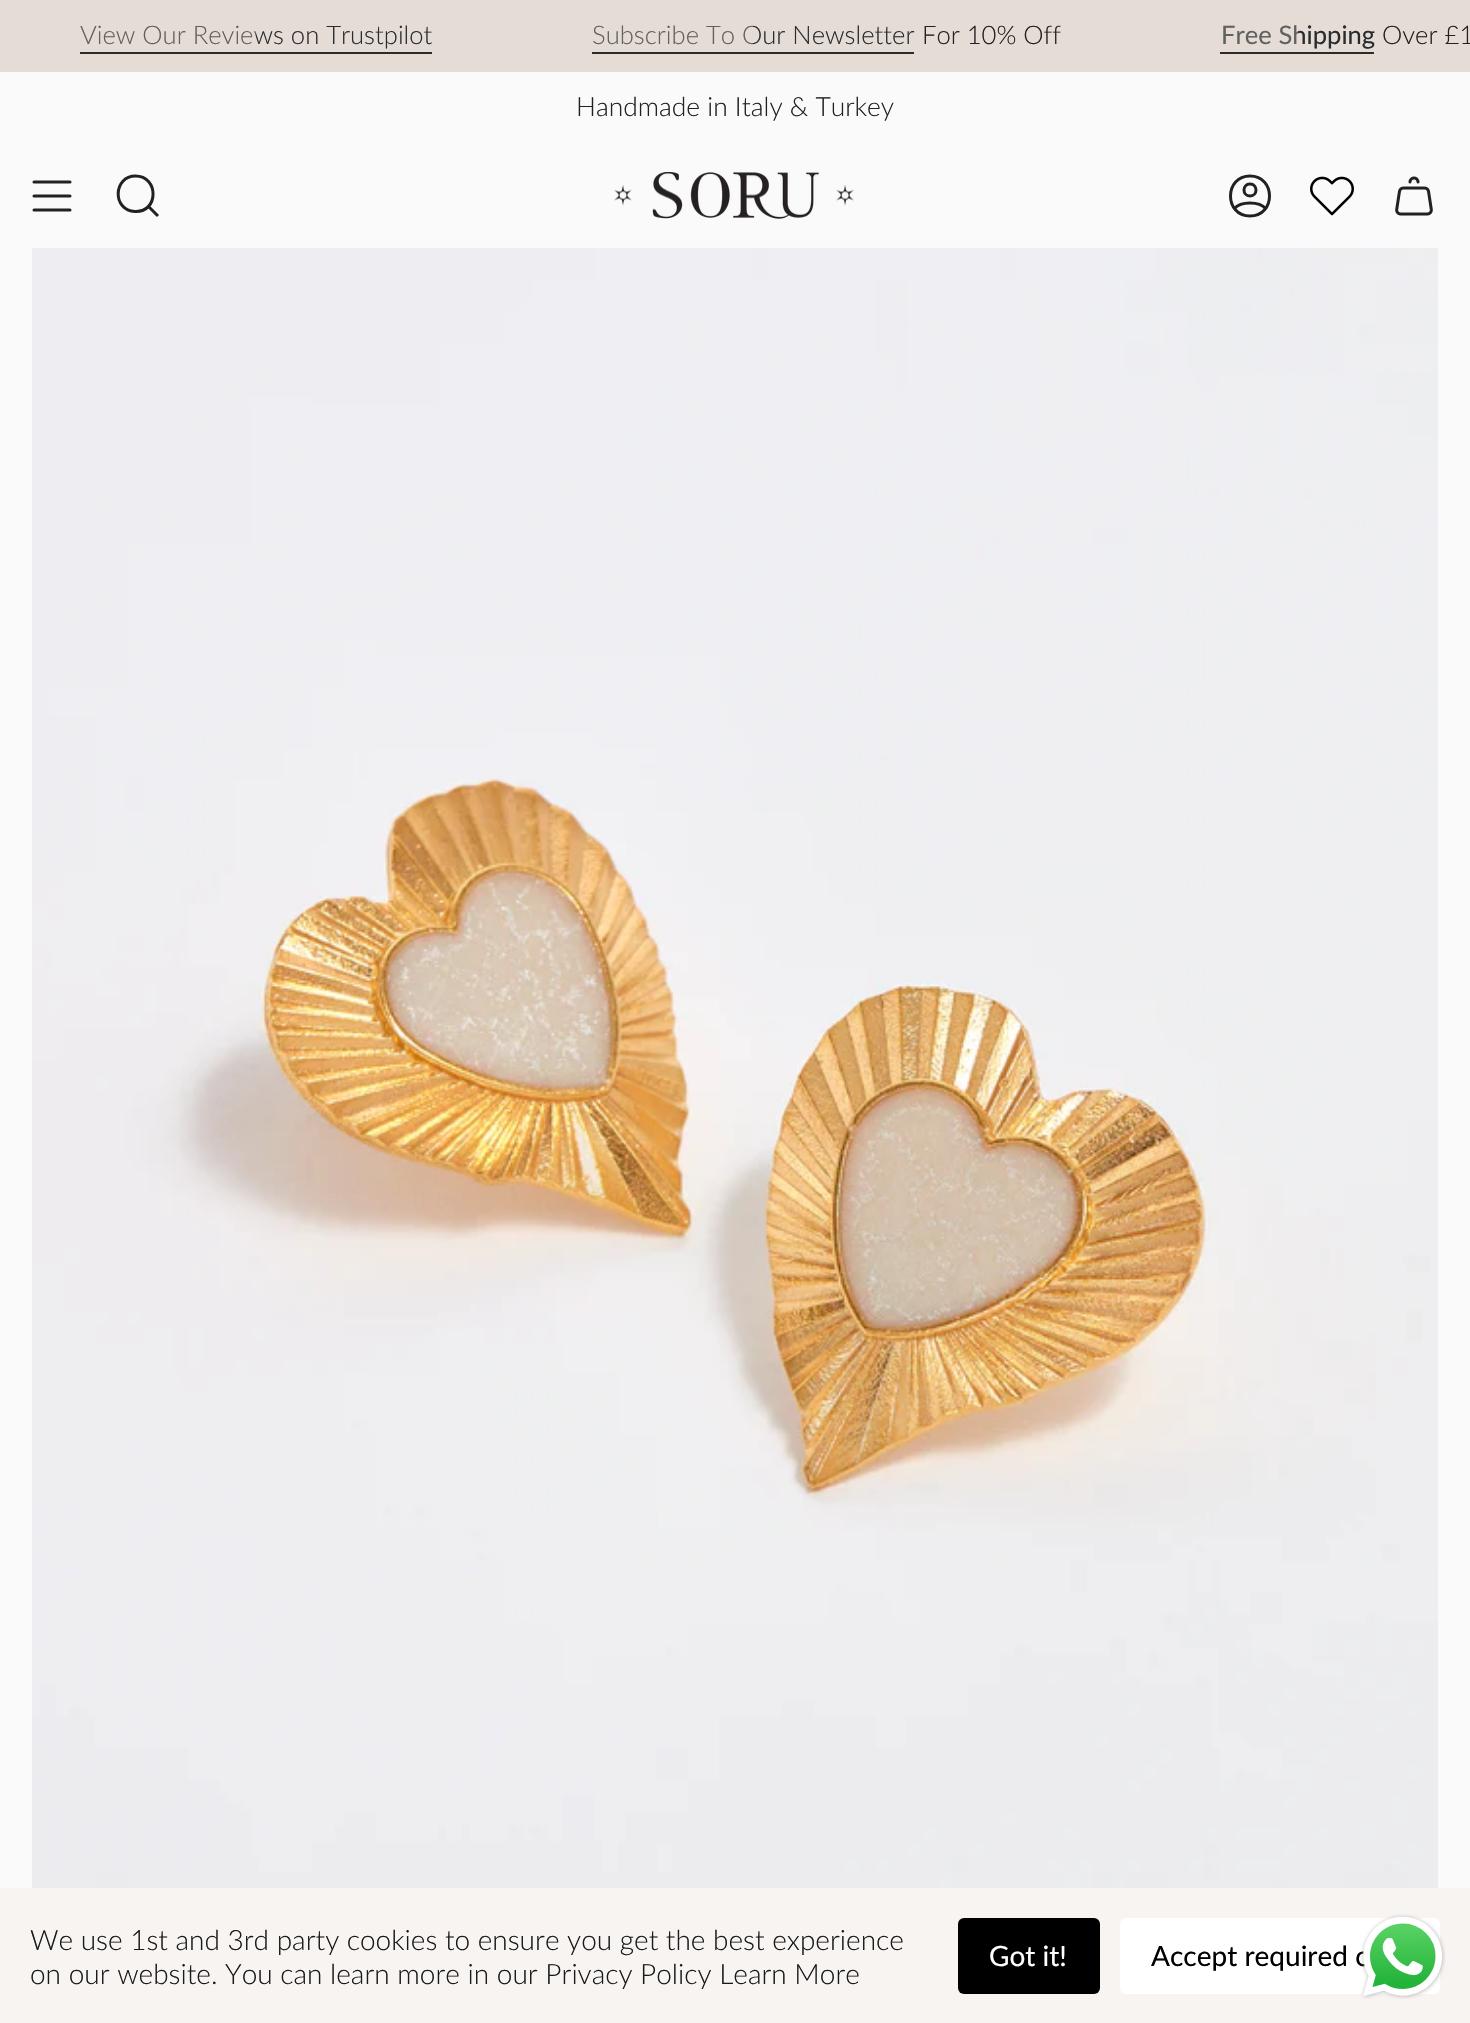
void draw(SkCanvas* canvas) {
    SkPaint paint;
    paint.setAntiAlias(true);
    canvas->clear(0xFFFAFAFA);
    paint.setColor(0xFFE6DCD6);
    canvas->drawRect(SkRect::MakeXYWH(0, 0, 1470, 72), paint);
    SkFont font1(fontMgr->matchFamilyStyle("Lato", SkFontStyle(300, SkFontStyle::kNormal_Width, SkFontStyle::kUpright_Slant)), 25.6f);
    font1.setSubpixel(true);
    {
        const SkColor colors[] = {0xFF616160, 0xFF616160, 0xFF282C2E, 0xFF282C2E};
        const float stops[] = {0, 0.5f, 0.5f, 1};
        const SkPoint ends[] = {{80, 36}, {432, 36}};
        paint.setShader(SkGradientShader::MakeLinear(ends, colors, stops, 4, SkTileMode::kClamp));
        paint.setAlpha(255);
    }
    canvas->drawString("View Our Reviews on Trustpilot", 80, 44, font1, paint);
    paint.setShader(nullptr);
    paint.setColor(0xFF282C2E);
    canvas->drawRect(SkRect::MakeXYWH(80, 52, 352, 2), paint);
    {
        const SkColor colors[] = {0xFF616160, 0xFF616160, 0xFF282C2E, 0xFF282C2E};
        const float stops[] = {0, 0.5f, 0.5f, 1};
        const SkPoint ends[] = {{592, 36}, {915, 36}};
        paint.setShader(SkGradientShader::MakeLinear(ends, colors, stops, 4, SkTileMode::kClamp));
        paint.setAlpha(255);
    }
    canvas->drawString("Subscribe To Our Newsletter", 592, 44, font1, paint);
    paint.setShader(nullptr);
    paint.setColor(0xFF282C2E);
    canvas->drawRect(SkRect::MakeXYWH(592, 52, 322, 2), paint);
    paint.setColor(0xFF212121);
    canvas->drawString("For 10% Off", 922, 44, font1, paint);
    SkFont font2(fontMgr->matchFamilyStyle("Lato", SkFontStyle::Normal()), 25.6f);
    font2.setSubpixel(true);
    {
        const SkColor colors[] = {0xFF616160, 0xFF616160, 0xFF282C2E, 0xFF282C2E};
        const float stops[] = {0, 0.5f, 0.5f, 1};
        const SkPoint ends[] = {{1221, 36}, {1375, 36}};
        paint.setShader(SkGradientShader::MakeLinear(ends, colors, stops, 4, SkTileMode::kClamp));
        paint.setAlpha(255);
    }
    canvas->drawString("Free Shipping", 1221, 44, font2, paint);
    paint.setShader(nullptr);
    paint.setColor(0xFF282C2E);
    canvas->drawRect(SkRect::MakeXYWH(1220, 52, 154, 2), paint);
    paint.setColor(0xFF212121);
    canvas->drawString("Over £1", 1382, 44, font1, paint);
    SkFont font3(fontMgr->matchFamilyStyle("Lato", SkFontStyle(300, SkFontStyle::kNormal_Width, SkFontStyle::kUpright_Slant)), 26.4f);
    font3.setSubpixel(true);
    canvas->drawString("Handmade in Italy & Turkey", 576, 116, font3, paint);
    paint.setStyle(SkPaint::kStroke_Style);
    paint.setStrokeWidth(3);
    paint.setStrokeCap(SkPaint::kRound_Cap);
    paint.setStrokeJoin(SkPaint::kRound_Join);
    canvas->drawPath(SkPathBuilder().moveTo(34, 182).lineTo(70, 182).moveTo(34, 196).lineTo(70, 196).moveTo(34, 210).lineTo(70, 210).detach(), paint);
    paint.setStrokeCap(SkPaint::kButt_Cap);
    paint.setStrokeJoin(SkPaint::kMiter_Join);
    canvas->drawPath(SkPathBuilder().moveTo(135.5f, 176).cubicTo(159, 176, 159, 212.5f, 135, 211.5f).cubicTo(112, 210.5f, 113, 176, 135.5f, 176).close().moveTo(148, 206).lineTo(158, 216).detach(), paint);
    canvas->drawImageRect(SkImages::DeferredFromEncodedData(SkData::MakeFromFileName("img1.png")), SkRect::MakeXYWH(614, 172, 240, 47), SkSamplingOptions());
    paint.setStrokeCap(SkPaint::kRound_Cap);
    paint.setStrokeJoin(SkPaint::kRound_Join);
    canvas->drawPath(SkPathBuilder().moveTo(1250, 176).cubicTo(1224, 176, 1224, 216, 1250, 216).cubicTo(1276, 216, 1276, 176, 1250, 176).close().moveTo(1234.5f, 208.5f).cubicTo(1240.5f, 201, 1259.5f, 201, 1265.5f, 208.5f).moveTo(1250, 196).cubicTo(1258, 196, 1258, 184, 1250, 184).cubicTo(1242, 184, 1242, 196, 1250, 196).close().detach(), paint);
    canvas->drawImageRect(SkImages::DeferredFromEncodedData(SkData::MakeFromFileName("img2.png")), SkRect::MakeXYWH(1310, 176, 44, 40), SkSamplingOptions());
    canvas->drawImageRect(SkImages::DeferredFromEncodedData(SkData::MakeFromFileName("img3.png")), SkRect::MakeXYWH(1395, 176, 38, 40), SkSamplingOptions());
    canvas->drawImageRect(SkImages::DeferredFromEncodedData(SkData::MakeFromFileName("img4.png")), SkRect::MakeXYWH(32, 248, 1406, 1640), SkSamplingOptions());
    paint.setStyle(SkPaint::kFill_Style);
    paint.setColor(0xFFF8F4F2);
    canvas->drawRect(SkRect::MakeXYWH(0, 1888, 1470, 135), paint);
    SkFont font4(fontMgr->matchFamilyStyle("Lato", SkFontStyle(300, SkFontStyle::kNormal_Width, SkFontStyle::kUpright_Slant)), 28);
    font4.setSubpixel(true);
    paint.setColor(0xFF1A1A1A);
    canvas->drawString("We use 1st and 3rd party cookies to ensure you get the best experience", 30, 1950, font4, paint);
    canvas->drawString("on our website. You can learn more in our Privacy Policy Learn More", 30, 1984, font4, paint);
    paint.setColor(0xFF000000);
    canvas->drawRoundRect(SkRect::MakeXYWH(958, 1918, 142, 76), 6, 6, paint);
    SkFont font5(fontMgr->matchFamilyStyle("Lato", SkFontStyle::Normal()), 28);
    font5.setSubpixel(true);
    paint.setColor(0xFFFFFFFF);
    canvas->drawString("Got it!", 989, 1966, font5, paint);
    canvas->drawRoundRect(SkRect::MakeXYWH(1120, 1918, 320, 76), 6, 6, paint);
    paint.setColor(0xFF000000);
    canvas->drawString("Accept required o", 1151, 1966, font5, paint);
    canvas->drawImageRect(SkImages::DeferredFromEncodedData(SkData::MakeFromFileName("img5.png")), SkRect::MakeXYWH(1360, 1914, 86, 85), SkSamplingOptions());
}
